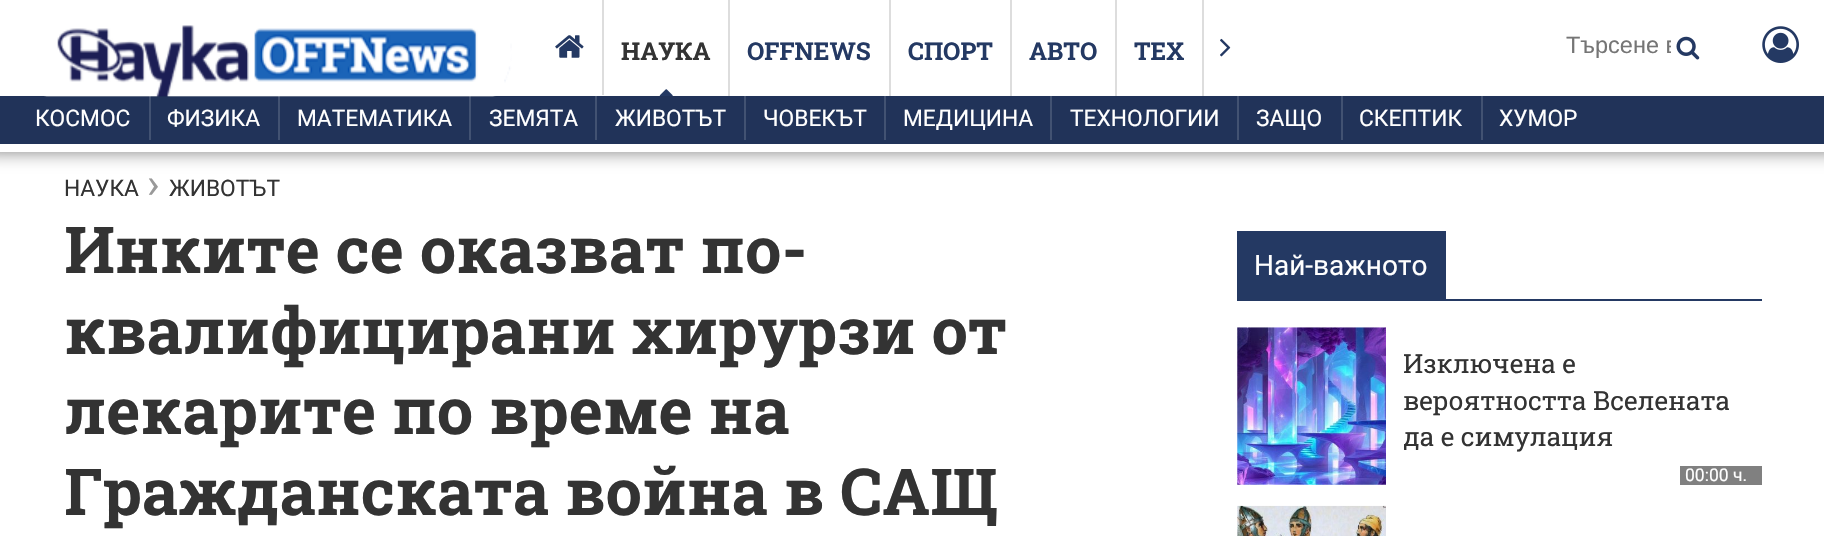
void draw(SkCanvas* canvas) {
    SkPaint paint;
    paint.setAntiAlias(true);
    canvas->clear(0xFFFFFFFF);
    paint.setColor(0x80000000);
    paint.setMaskFilter(SkMaskFilter::MakeBlur(kNormal_SkBlurStyle, 9));
    canvas->drawRect(SkRect::MakeXYWH(-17, 117, 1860, 35), paint);
    paint.setMaskFilter(nullptr);
    paint.setColor(0xFF243963);
    canvas->drawRect(SkRect::MakeXYWH(0, 96, 1824, 48), paint);
    canvas->drawImageRect(SkImages::DeferredFromEncodedData(SkData::MakeFromFileName("img1.png")), SkRect::MakeXYWH(44, 25, 468, 72), SkSamplingOptions());
    paint.setColor(0xFFDDDDDD);
    canvas->drawRect(SkRect::MakeXYWH(602, 0, 2, 95), paint);
    canvas->drawImageRect(SkImages::DeferredFromEncodedData(SkData::MakeFromFileName("img2.png")), SkRect::MakeXYWH(555, 35, 29, 23), SkSamplingOptions());
    canvas->drawRect(SkRect::MakeXYWH(728, 0, 2, 96), paint);
    SkFont font1(fontMgr->matchFamilyStyle("Roboto Slab", SkFontStyle::Bold()), 24.5f);
    font1.setSubpixel(true);
    paint.setColor(0xFF333333);
    canvas->drawString("НАУКА", 621, 60, font1, paint);
    canvas->drawImageRect(SkImages::DeferredFromEncodedData(SkData::MakeFromFileName("img3.png")), SkRect::MakeXYWH(659, 89, 14, 7), SkSamplingOptions());
    paint.setColor(0xFFDDDDDD);
    canvas->drawRect(SkRect::MakeXYWH(889, 0, 2, 96), paint);
    paint.setColor(0xFF243963);
    canvas->drawString("OFFNEWS", 747, 60, font1, paint);
    paint.setColor(0xFFDDDDDD);
    canvas->drawRect(SkRect::MakeXYWH(1010, 0, 2, 96), paint);
    paint.setColor(0xFF243963);
    canvas->drawString("СПОРТ", 908, 60, font1, paint);
    paint.setColor(0xFFDDDDDD);
    canvas->drawRect(SkRect::MakeXYWH(1115, 0, 2, 96), paint);
    paint.setColor(0xFF243963);
    canvas->drawString("АВТО", 1029, 60, font1, paint);
    paint.setColor(0xFFDDDDDD);
    canvas->drawRect(SkRect::MakeXYWH(1202, 0, 2, 96), paint);
    paint.setColor(0xFF243963);
    canvas->drawString("ТЕХ", 1134, 60, font1, paint);
    canvas->drawImageRect(SkImages::DeferredFromEncodedData(SkData::MakeFromFileName("img4.png")), SkRect::MakeXYWH(1220, 38, 11, 19), SkSamplingOptions());
    canvas->save();
    canvas->clipRect(SkRect::MakeXYWH(1566, 33, 105, 27));
    SkFont font2(fontMgr->matchFamilyStyle("Liberation Sans", SkFontStyle::Normal()), 23.5f);
    font2.setSubpixel(true);
    paint.setColor(0xFF757575);
    canvas->drawString("Търсене в", 1566, 53, font2, paint);
    canvas->restore();
    canvas->drawImageRect(SkImages::DeferredFromEncodedData(SkData::MakeFromFileName("img5.png")), SkRect::MakeXYWH(1676, 36, 24, 24), SkSamplingOptions());
    canvas->drawImageRect(SkImages::DeferredFromEncodedData(SkData::MakeFromFileName("img6.png")), SkRect::MakeXYWH(1762, 26, 37, 37), SkSamplingOptions());
    paint.setColor(0xFFFFFFFF);
    canvas->drawRect(SkRect::MakeXYWH(0, 144, 1824, 8), paint);
    paint.setColor(0x1A000000);
    canvas->drawRect(SkRect::MakeXYWH(0, 96, 1824, 48), paint);
    paint.setColor(0x26FFFFFF);
    canvas->drawRect(SkRect::MakeXYWH(149, 96, 2, 44), paint);
    SkFont font3(fontMgr->matchFamilyStyle("Roboto", SkFontStyle::Normal()), 22.75f);
    font3.setSubpixel(true);
    paint.setColor(0xFFFFFFFF);
    canvas->drawString("КОСМОС", 35, 126, font3, paint);
    paint.setColor(0x26FFFFFF);
    canvas->drawRect(SkRect::MakeXYWH(278, 96, 2, 44), paint);
    paint.setColor(0xFFFFFFFF);
    canvas->drawString("ФИЗИКА", 167, 126, font3, paint);
    paint.setColor(0x26FFFFFF);
    canvas->drawRect(SkRect::MakeXYWH(469, 96, 2, 44), paint);
    paint.setColor(0xFFFFFFFF);
    canvas->drawString("МАТЕМАТИКА", 297, 126, font3, paint);
    paint.setColor(0xFF425272);
    canvas->drawRect(SkRect::MakeXYWH(595, 96, 2, 44), paint);
    paint.setColor(0xFFFFFFFF);
    canvas->drawString("ЗЕМЯТА", 489, 126, font3, paint);
    paint.setColor(0xFF425272);
    canvas->drawRect(SkRect::MakeXYWH(744, 96, 2, 44), paint);
    paint.setColor(0xFFFFFFFF);
    canvas->drawString("ЖИВОТЪТ", 615, 126, font3, paint);
    paint.setColor(0xFF425272);
    canvas->drawRect(SkRect::MakeXYWH(884, 96, 2, 44), paint);
    paint.setColor(0xFFFFFFFF);
    canvas->drawString("ЧОВЕКЪТ", 763, 126, font3, paint);
    paint.setColor(0xFF425272);
    canvas->drawRect(SkRect::MakeXYWH(1050, 96, 2, 44), paint);
    paint.setColor(0xFFFFFFFF);
    canvas->drawString("МЕДИЦИНА", 903, 126, font3, paint);
    paint.setColor(0xFF425272);
    canvas->drawRect(SkRect::MakeXYWH(1237, 96, 2, 44), paint);
    paint.setColor(0xFFFFFFFF);
    canvas->drawString("ТЕХНОЛОГИИ", 1070, 126, font3, paint);
    paint.setColor(0xFF425272);
    canvas->drawRect(SkRect::MakeXYWH(1341, 96, 2, 44), paint);
    paint.setColor(0xFFFFFFFF);
    canvas->drawString("ЗАЩО", 1256, 126, font3, paint);
    paint.setColor(0xFF425272);
    canvas->drawRect(SkRect::MakeXYWH(1481, 96, 2, 44), paint);
    paint.setColor(0xFFFFFFFF);
    canvas->drawString("СКЕПТИК", 1359, 126, font3, paint);
    canvas->drawString("ХУМОР", 1499, 126, font3, paint);
    paint.setColor(0xFF333333);
    canvas->drawString("НАУКА", 64, 196, font3, paint);
    SkFont font4(fontMgr->matchFamilyStyle("Roboto", SkFontStyle::Normal()), 42);
    font4.setSubpixel(true);
    paint.setColor(0xFF999999);
    canvas->drawString("›", 147, 198, font4, paint);
    paint.setColor(0xFF333333);
    canvas->drawString("ЖИВОТЪТ", 169, 196, font3, paint);
    SkFont font5(fontMgr->matchFamilyStyle("Roboto Slab", SkFontStyle::Bold()), 64.75f);
    font5.setSubpixel(true);
    canvas->drawString("Инките се оказват по-", 64, 273, font5, paint);
    canvas->drawString("квалифицирани хирурзи от", 64, 354, font5, paint);
    canvas->drawString("лекарите по време на", 64, 434, font5, paint);
    canvas->drawString("Гражданската война в САЩ", 64, 515, font5, paint);
    paint.setColor(0xFF243963);
    canvas->drawRect(SkRect::MakeXYWH(1237, 299, 525, 2), paint);
    canvas->drawRect(SkRect::MakeXYWH(1237, 231, 209, 68), paint);
    SkFont font6(fontMgr->matchFamilyStyle("Roboto", SkFontStyle::Normal()), 28);
    font6.setSubpixel(true);
    paint.setColor(0xFFFFFFFF);
    canvas->drawString("Най-важното", 1254, 275, font6, paint);
    canvas->drawImageRect(SkImages::DeferredFromEncodedData(SkData::MakeFromFileName("img7.png")), SkRect::MakeXYWH(1237, 327, 149, 158), SkSamplingOptions());
    canvas->save();
    canvas->clipRect(SkRect::MakeXYWH(1404, 345, 341, 112));
    SkFont font7(fontMgr->matchFamilyStyle("Roboto Slab", SkFontStyle::Normal()), 26.25f);
    font7.setSubpixel(true);
    paint.setColor(0xFF333333);
    canvas->drawString("Изключена е", 1403, 373, font7, paint);
    canvas->drawString("вероятността Вселената", 1403, 410, font7, paint);
    canvas->drawString("да е симулация", 1403, 446, font7, paint);
    canvas->restore();
    paint.setColor(0xFF808080);
    canvas->drawRect(SkRect::MakeXYWH(1680, 466, 82, 19), paint);
    SkFont font8(fontMgr->matchFamilyStyle("Roboto", SkFontStyle::Normal()), 17.5f);
    font8.setSubpixel(true);
    paint.setColor(0xFFFFFFFF);
    canvas->drawString("00:00 ч.", 1685, 481, font8, paint);
    canvas->drawImageRect(SkImages::DeferredFromEncodedData(SkData::MakeFromFileName("img8.png")), SkRect::MakeXYWH(1237, 505, 149, 31), SkSamplingOptions());
}
